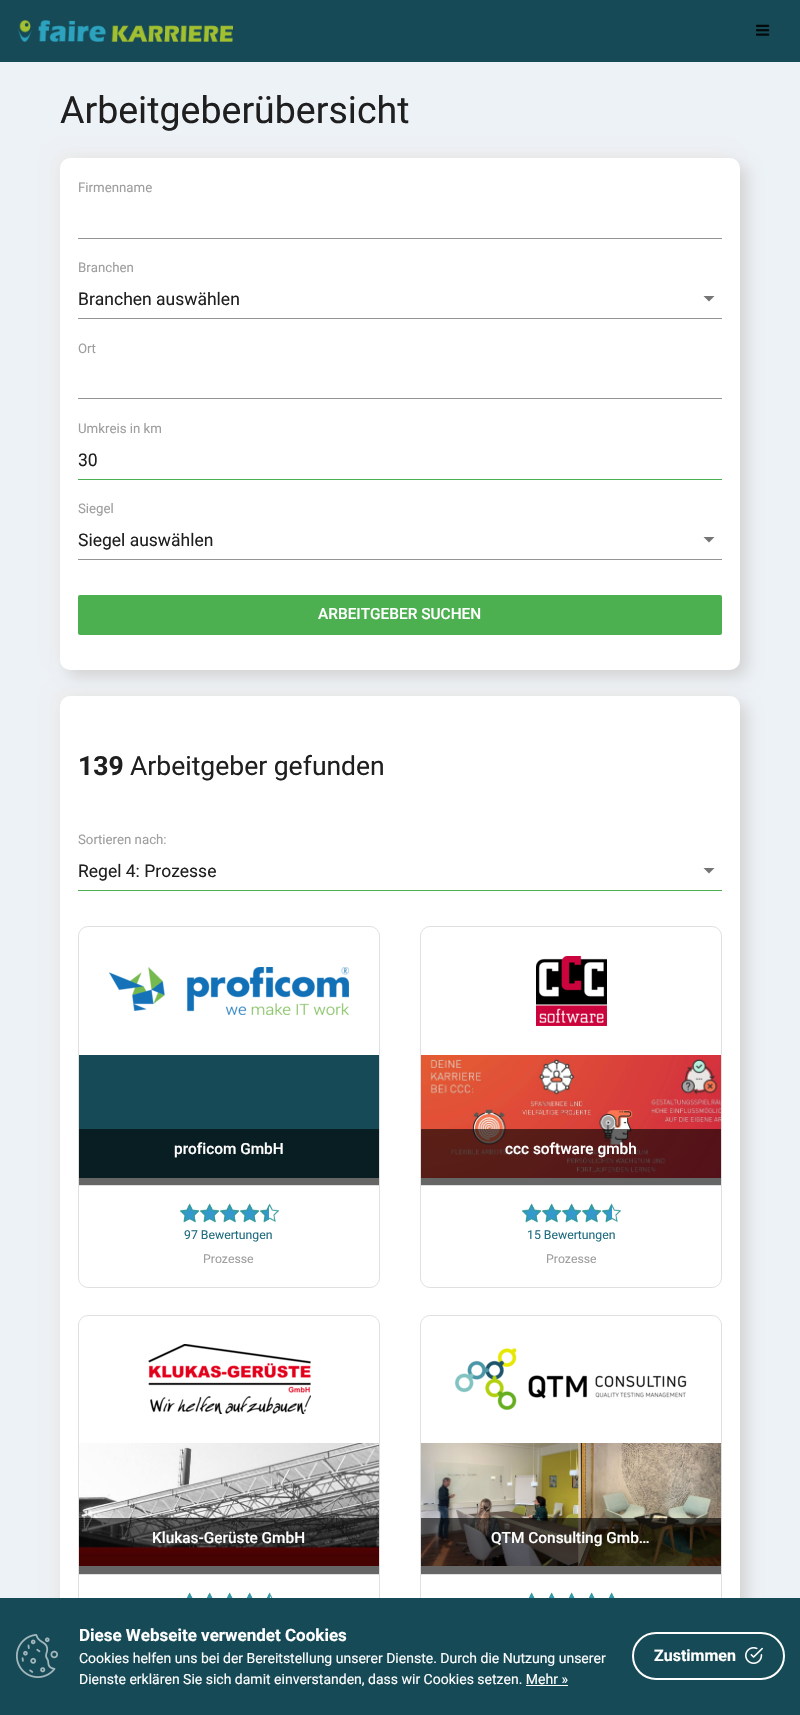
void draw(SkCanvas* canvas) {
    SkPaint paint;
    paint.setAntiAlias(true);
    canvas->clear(0xFFEDF2F7);
    paint.setColor(0xFF164A57);
    canvas->drawRect(SkRect::MakeXYWH(0, 0, 800, 62), paint);
    canvas->drawImageRect(SkImages::DeferredFromEncodedData(SkData::MakeFromFileName("img1.png")), SkRect::MakeXYWH(18, 20, 215, 22), SkSamplingOptions());
    canvas->drawImageRect(SkImages::DeferredFromEncodedData(SkData::MakeFromFileName("img2.png")), SkRect::MakeXYWH(756, 24, 14, 12), SkSamplingOptions());
    SkFont font1(fontMgr->matchFamilyStyle("Roboto", SkFontStyle::Normal()), 37.5f);
    font1.setSubpixel(true);
    paint.setColor(0xFF1F1F20);
    canvas->drawString("Arbeitgeberübersicht", 60, 123, font1, paint);
    paint.setColor(0xFFEDEDED);
    paint.setMaskFilter(SkMaskFilter::MakeBlur(kNormal_SkBlurStyle, 7.5f));
    canvas->drawRoundRect(SkRect::MakeXYWH(53, 151, 680, 512), 10, 10, paint);
    paint.setMaskFilter(nullptr);
    paint.setColor(0xFFD3D3D3);
    paint.setMaskFilter(SkMaskFilter::MakeBlur(kNormal_SkBlurStyle, 7.5f));
    canvas->drawRoundRect(SkRect::MakeXYWH(67, 165, 680, 512), 10, 10, paint);
    paint.setMaskFilter(nullptr);
    paint.setColor(0xFFFFFFFF);
    canvas->drawRoundRect(SkRect::MakeXYWH(60, 158, 680, 512), 10, 10, paint);
    SkFont font2(fontMgr->matchFamilyStyle("Roboto", SkFontStyle::Normal()), 13.25f);
    font2.setSubpixel(true);
    paint.setColor(0xFF9E9E9E);
    canvas->drawString("Firmenname", 78, 192, font2, paint);
    paint.setColor(0xFF949494);
    canvas->drawRect(SkRect::MakeXYWH(78, 238, 644, 1), paint);
    paint.setColor(0xFF9E9E9E);
    canvas->drawString("Branchen", 78, 272, font2, paint);
    paint.setColor(0xFF757575);
    canvas->drawPath(SkPathBuilder().moveTo(703.5f, 296).lineTo(709, 301.5f).lineTo(714.5f, 296).close().detach(), paint);
    paint.setColor(0xFF949494);
    canvas->drawRect(SkRect::MakeXYWH(78, 318, 644, 1), paint);
    SkFont font3(fontMgr->matchFamilyStyle("Roboto", SkFontStyle::Normal()), 17.5f);
    font3.setSubpixel(true);
    paint.setColor(0xFF1F1F20);
    canvas->drawString("Branchen auswählen", 78, 305, font3, paint);
    paint.setColor(0xFF9E9E9E);
    canvas->drawString("Ort", 78, 353, font2, paint);
    paint.setColor(0xFF949494);
    canvas->drawRect(SkRect::MakeXYWH(78, 398, 644, 1), paint);
    paint.setColor(0xFF9E9E9E);
    canvas->drawString("Umkreis in km", 78, 433, font2, paint);
    paint.setColor(0xFF4CAF50);
    canvas->drawRect(SkRect::MakeXYWH(78, 479, 644, 1), paint);
    paint.setColor(0xFF1F1F20);
    canvas->drawString("30", 78, 466, font3, paint);
    paint.setColor(0xFF9E9E9E);
    canvas->drawString("Siegel", 78, 513, font2, paint);
    paint.setColor(0xFF757575);
    canvas->drawPath(SkPathBuilder().moveTo(703.5f, 537).lineTo(709, 542.5f).lineTo(714.5f, 537).close().detach(), paint);
    paint.setColor(0xFF949494);
    canvas->drawRect(SkRect::MakeXYWH(78, 559, 644, 1), paint);
    paint.setColor(0xFF1F1F20);
    canvas->drawString("Siegel auswählen", 78, 546, font3, paint);
    paint.setColor(0xFF4CAF50);
    canvas->drawRoundRect(SkRect::MakeXYWH(78, 595, 644, 40), 2, 2, paint);
    SkFont font4(fontMgr->matchFamilyStyle("Roboto", SkFontStyle(500, SkFontStyle::kNormal_Width, SkFontStyle::kUpright_Slant)), 15.4f);
    font4.setSubpixel(true);
    paint.setColor(0xFFFFFFFF);
    canvas->drawString("ARBEITGEBER SUCHEN", 318, 619, font4, paint);
    paint.setColor(0xFFEDEDED);
    paint.setMaskFilter(SkMaskFilter::MakeBlur(kNormal_SkBlurStyle, 7.5f));
    canvas->drawRoundRect(SkRect::MakeXYWH(53, 689, 680, 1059), 10, 10, paint);
    paint.setMaskFilter(nullptr);
    paint.setColor(0xFFD3D3D3);
    paint.setMaskFilter(SkMaskFilter::MakeBlur(kNormal_SkBlurStyle, 7.5f));
    canvas->drawRoundRect(SkRect::MakeXYWH(67, 703, 680, 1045), 10, 10, paint);
    paint.setMaskFilter(nullptr);
    paint.setColor(0xFFFFFFFF);
    canvas->drawRoundRect(SkRect::MakeXYWH(60, 696, 680, 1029), 10, 10, paint);
    paint.setColor(0xFF666666);
    canvas->drawRect(SkRect::MakeXYWH(79, 1178, 300, 7), paint);
    SkFont font5(fontMgr->matchFamilyStyle("Roboto", SkFontStyle::Bold()), 26.5f);
    font5.setSubpixel(true);
    paint.setColor(0xFF1F1F20);
    canvas->drawString("139", 78, 775, font5, paint);
    SkFont font6(fontMgr->matchFamilyStyle("Roboto", SkFontStyle::Normal()), 26.5f);
    font6.setSubpixel(true);
    canvas->drawString("Arbeitgeber gefunden", 130, 775, font6, paint);
    paint.setColor(0xFF9E9E9E);
    canvas->drawString("Sortieren nach:", 78, 844, font2, paint);
    paint.setColor(0xFF757575);
    canvas->drawPath(SkPathBuilder().moveTo(703.5f, 868).lineTo(709, 873.5f).lineTo(714.5f, 868).close().detach(), paint);
    paint.setColor(0xFF4CAF50);
    canvas->drawRect(SkRect::MakeXYWH(78, 890, 644, 1), paint);
    paint.setColor(0xFF1F1F20);
    canvas->drawString("Regel 4: Prozesse", 78, 877, font3, paint);
    paint.setStyle(SkPaint::kStroke_Style);
    paint.setStrokeWidth(1);
    paint.setColor(0xFFE0E0E0);
    canvas->drawRoundRect(SkRect::MakeXYWH(78.5f, 926.5f, 301, 361), 9.5f, 9.5f, paint);
    canvas->drawImageRect(SkImages::DeferredFromEncodedData(SkData::MakeFromFileName("img3.png")), SkRect::MakeXYWH(109, 967, 240, 48), SkSamplingOptions());
    paint.setStyle(SkPaint::kFill_Style);
    paint.setColor(0xFF164A57);
    canvas->drawRect(SkRect::MakeXYWH(79, 1055, 300, 74), paint);
    paint.setColor(0xFF091E23);
    canvas->drawRect(SkRect::MakeXYWH(79, 1129, 300, 49), paint);
    paint.setColor(0xFFFFFFFF);
    canvas->drawString("proficom GmbH", 174, 1154, font4, paint);
    paint.setColor(0xFFE0E0E0);
    canvas->drawRect(SkRect::MakeXYWH(79, 1185, 300, 1), paint);
    canvas->drawImageRect(SkImages::DeferredFromEncodedData(SkData::MakeFromFileName("img4.png")), SkRect::MakeXYWH(179, 1203, 100, 20), SkSamplingOptions());
    canvas->drawImageRect(SkImages::DeferredFromEncodedData(SkData::MakeFromFileName("img5.png")), SkRect::MakeXYWH(179, 1203, 90, 20), SkSamplingOptions());
    SkFont font7(fontMgr->matchFamilyStyle("Roboto", SkFontStyle::Normal()), 12.25f);
    font7.setSubpixel(true);
    paint.setColor(0xFF206C80);
    canvas->drawString("97 Bewertungen", 184, 1239, font7, paint);
    paint.setColor(0xFF9E9E9E);
    canvas->drawString("Prozesse", 203, 1263, font7, paint);
    paint.setStyle(SkPaint::kStroke_Style);
    paint.setColor(0xFFE0E0E0);
    canvas->drawRoundRect(SkRect::MakeXYWH(420.5f, 926.5f, 301, 361), 9.5f, 9.5f, paint);
    canvas->drawImageRect(SkImages::DeferredFromEncodedData(SkData::MakeFromFileName("img6.png")), SkRect::MakeXYWH(536, 956, 71, 70), SkSamplingOptions());
    canvas->drawImageRect(SkImages::DeferredFromEncodedData(SkData::MakeFromFileName("img7.png")), SkRect::MakeXYWH(421, 1055, 300, 123), SkSamplingOptions());
    paint.setStyle(SkPaint::kFill_Style);
    paint.setColor(0x99000000);
    canvas->drawRect(SkRect::MakeXYWH(421, 1129, 300, 56), paint);
    paint.setColor(0xFFFFFFFF);
    canvas->drawString("ccc software gmbh", 505, 1154, font4, paint);
    paint.setColor(0xFFE0E0E0);
    canvas->drawRect(SkRect::MakeXYWH(421, 1185, 300, 1), paint);
    canvas->drawImageRect(SkImages::DeferredFromEncodedData(SkData::MakeFromFileName("img4.png")), SkRect::MakeXYWH(521, 1203, 100, 20), SkSamplingOptions());
    canvas->drawImageRect(SkImages::DeferredFromEncodedData(SkData::MakeFromFileName("img8.png")), SkRect::MakeXYWH(521, 1203, 91, 20), SkSamplingOptions());
    paint.setColor(0xFF206C80);
    canvas->drawString("15 Bewertungen", 527, 1239, font7, paint);
    paint.setColor(0xFF9E9E9E);
    canvas->drawString("Prozesse", 546, 1263, font7, paint);
    paint.setStyle(SkPaint::kStroke_Style);
    paint.setColor(0xFFE0E0E0);
    canvas->drawRoundRect(SkRect::MakeXYWH(78.5f, 1315.5f, 301, 361), 9.5f, 9.5f, paint);
    canvas->drawImageRect(SkImages::DeferredFromEncodedData(SkData::MakeFromFileName("img9.png")), SkRect::MakeXYWH(148, 1344, 163, 70), SkSamplingOptions());
    canvas->drawImageRect(SkImages::DeferredFromEncodedData(SkData::MakeFromFileName("img10.png")), SkRect::MakeXYWH(79, 1443, 300, 123), SkSamplingOptions());
    paint.setStyle(SkPaint::kFill_Style);
    paint.setColor(0x99000000);
    canvas->drawRect(SkRect::MakeXYWH(79, 1518, 300, 56), paint);
    paint.setColor(0xFFFFFFFF);
    canvas->drawString("Klukas-Gerüste GmbH", 152, 1543, font4, paint);
    paint.setColor(0xFFE0E0E0);
    canvas->drawRect(SkRect::MakeXYWH(79, 1574, 300, 1), paint);
    canvas->drawImageRect(SkImages::DeferredFromEncodedData(SkData::MakeFromFileName("img11.png")), SkRect::MakeXYWH(187, 1592, 86, 6), SkSamplingOptions());
    canvas->drawImageRect(SkImages::DeferredFromEncodedData(SkData::MakeFromFileName("img12.png")), SkRect::MakeXYWH(187, 1592, 83, 6), SkSamplingOptions());
    paint.setStyle(SkPaint::kStroke_Style);
    canvas->drawRoundRect(SkRect::MakeXYWH(420.5f, 1315.5f, 301, 361), 9.5f, 9.5f, paint);
    canvas->drawImageRect(SkImages::DeferredFromEncodedData(SkData::MakeFromFileName("img13.png")), SkRect::MakeXYWH(454, 1348, 233, 63), SkSamplingOptions());
    canvas->drawImageRect(SkImages::DeferredFromEncodedData(SkData::MakeFromFileName("img14.png")), SkRect::MakeXYWH(421, 1443, 300, 123), SkSamplingOptions());
    paint.setStyle(SkPaint::kFill_Style);
    paint.setColor(0x99000000);
    canvas->drawRect(SkRect::MakeXYWH(421, 1518, 300, 56), paint);
    paint.setColor(0xFFFFFFFF);
    canvas->drawString("QTM Consulting Gmb…", 491, 1543, font4, paint);
    paint.setColor(0xFFE0E0E0);
    canvas->drawRect(SkRect::MakeXYWH(421, 1574, 300, 1), paint);
    canvas->drawImageRect(SkImages::DeferredFromEncodedData(SkData::MakeFromFileName("img11.png")), SkRect::MakeXYWH(529, 1592, 86, 6), SkSamplingOptions());
    canvas->drawImageRect(SkImages::DeferredFromEncodedData(SkData::MakeFromFileName("img15.png")), SkRect::MakeXYWH(529, 1592, 86, 6), SkSamplingOptions());
    paint.setColor(0xFF164A57);
    canvas->drawRect(SkRect::MakeXYWH(0, 1598, 800, 117), paint);
    canvas->drawImageRect(SkImages::DeferredFromEncodedData(SkData::MakeFromFileName("img16.png")), SkRect::MakeXYWH(16, 1634, 42, 44), SkSamplingOptions());
    SkFont font8(fontMgr->matchFamilyStyle("Roboto", SkFontStyle::Bold()), 17);
    font8.setSubpixel(true);
    paint.setColor(0xFFFFFFFF);
    canvas->drawString("Diese Webseite verwendet Cookies", 79, 1641, font8, paint);
    SkFont font9(fontMgr->matchFamilyStyle("Roboto", SkFontStyle::Normal()), 14);
    font9.setSubpixel(true);
    canvas->drawString("Cookies helfen uns bei der Bereitstellung unserer Dienste. Durch die Nutzung unserer", 79, 1663, font9, paint);
    canvas->drawString("Dienste erklären Sie sich damit einverstanden, dass wir Cookies setzen. Mehr »", 79, 1684, font9, paint);
    canvas->drawRect(SkRect::MakeXYWH(526, 1685, 42, 1), paint);
    paint.setStyle(SkPaint::kStroke_Style);
    paint.setStrokeWidth(2);
    canvas->drawRoundRect(SkRect::MakeXYWH(633, 1633, 151, 46), 23, 23, paint);
    SkFont font10(fontMgr->matchFamilyStyle("Roboto", SkFontStyle::Bold()), 16);
    font10.setSubpixel(true);
    paint.setStyle(SkPaint::kFill_Style);
    canvas->drawString("Zustimmen", 654, 1661, font10, paint);
    canvas->drawImageRect(SkImages::DeferredFromEncodedData(SkData::MakeFromFileName("img17.png")), SkRect::MakeXYWH(745, 1647, 18, 17), SkSamplingOptions());
}
